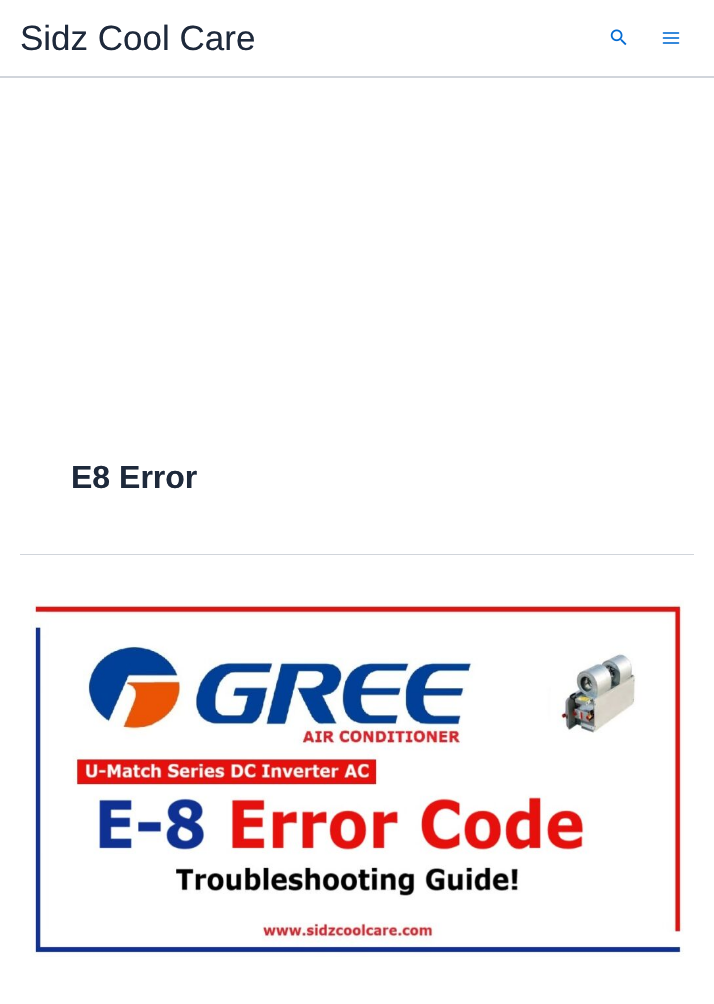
void draw(SkCanvas* canvas) {
    SkPaint paint;
    paint.setAntiAlias(true);
    canvas->clear(0xFFFFFFFF);
    paint.setColor(0xFFD1D5DB);
    canvas->drawRect(SkRect::MakeXYWH(0, 76, 714, 2), paint);
    SkFont font1(fontMgr->matchFamilyStyle("Liberation Sans", SkFontStyle::Normal()), 35);
    font1.setSubpixel(true);
    paint.setColor(0xFF1E293B);
    canvas->drawString("Sidz Cool Care", 20, 50, font1, paint);
    canvas->drawImageRect(SkImages::DeferredFromEncodedData(SkData::MakeFromFileName("img1.png")), SkRect::MakeXYWH(610, 29, 17, 17), SkSamplingOptions());
    canvas->drawImageRect(SkImages::DeferredFromEncodedData(SkData::MakeFromFileName("img2.png")), SkRect::MakeXYWH(662, 32, 18, 12), SkSamplingOptions());
    paint.setColor(0xFFD1D5DB);
    canvas->drawRect(SkRect::MakeXYWH(20, 554, 674, 1), paint);
    SkFont font2(fontMgr->matchFamilyStyle("Liberation Sans", SkFontStyle::Bold()), 32);
    font2.setSubpixel(true);
    paint.setColor(0xFF1E293B);
    canvas->drawString("E8 Error", 71, 488, font2, paint);
    canvas->drawImageRect(SkImages::DeferredFromEncodedData(SkData::MakeFromFileName("img3.png")), SkRect::MakeXYWH(30, 600, 654, 357), SkSamplingOptions());
}
